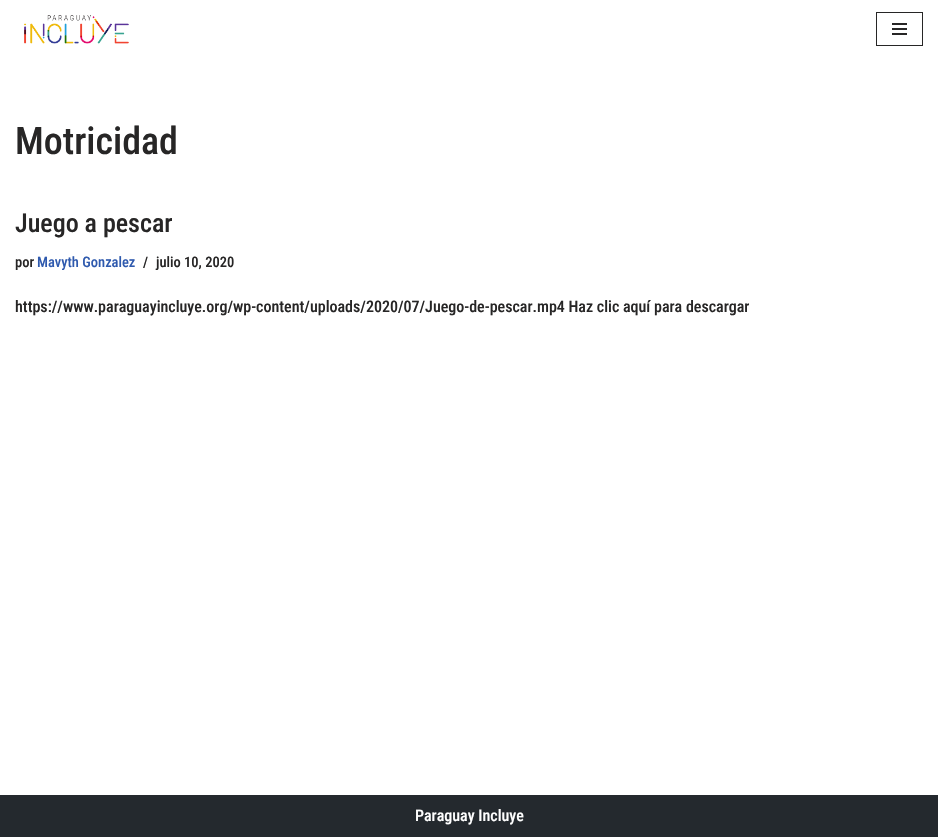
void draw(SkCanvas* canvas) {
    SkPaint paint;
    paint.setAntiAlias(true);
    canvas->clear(0xFFFFFFFF);
    canvas->drawImageRect(SkImages::DeferredFromEncodedData(SkData::MakeFromFileName("img1.png")), SkRect::MakeXYWH(24, 15, 105, 29), SkSamplingOptions());
    paint.setStyle(SkPaint::kStroke_Style);
    paint.setStrokeWidth(1);
    paint.setColor(0xFF272626);
    canvas->drawRect(SkRect::MakeXYWH(876.5f, 12.5f, 46, 33), paint);
    paint.setStyle(SkPaint::kFill_Style);
    canvas->drawRect(SkRect::MakeXYWH(892, 23, 15, 2), paint);
    canvas->drawRect(SkRect::MakeXYWH(892, 28, 15, 2), paint);
    canvas->drawRect(SkRect::MakeXYWH(892, 33, 15, 2), paint);
    SkFont font1(fontMgr->matchFamilyStyle("Roboto Condensed", SkFontStyle(500, SkFontStyle::kNormal_Width, SkFontStyle::kUpright_Slant)), 38);
    font1.setSubpixel(true);
    canvas->drawString("Motricidad", 15, 154, font1, paint);
    SkFont font2(fontMgr->matchFamilyStyle("Roboto Condensed", SkFontStyle(500, SkFontStyle::kNormal_Width, SkFontStyle::kUpright_Slant)), 26);
    font2.setSubpixel(true);
    canvas->drawString("Juego a pescar", 15, 232, font2, paint);
    SkFont font3(fontMgr->matchFamilyStyle("Roboto Condensed", SkFontStyle(500, SkFontStyle::kNormal_Width, SkFontStyle::kUpright_Slant)), 14.5f);
    font3.setSubpixel(true);
    canvas->drawString("por", 15, 267, font3, paint);
    paint.setColor(0xFF2F5AAE);
    canvas->drawString("Mavyth Gonzalez", 37, 267, font3, paint);
    paint.setColor(0xFF272626);
    canvas->drawString("/", 143, 267, font3, paint);
    canvas->drawString("julio 10, 2020", 156, 267, font3, paint);
    SkFont font4(fontMgr->matchFamilyStyle("Roboto Condensed", SkFontStyle(500, SkFontStyle::kNormal_Width, SkFontStyle::kUpright_Slant)), 16);
    font4.setSubpixel(true);
    canvas->drawString("https://www.paraguayincluye.org/wp-content/uploads/2020/07/Juego-de-pescar.mp4 Haz clic aquí para descargar", 15, 312, font4, paint);
    paint.setColor(0xFF24292E);
    canvas->drawRect(SkRect::MakeXYWH(0, 795, 938, 42), paint);
    paint.setColor(0xFFFFFFFF);
    canvas->drawString("Paraguay Incluye", 415, 821, font4, paint);
}
